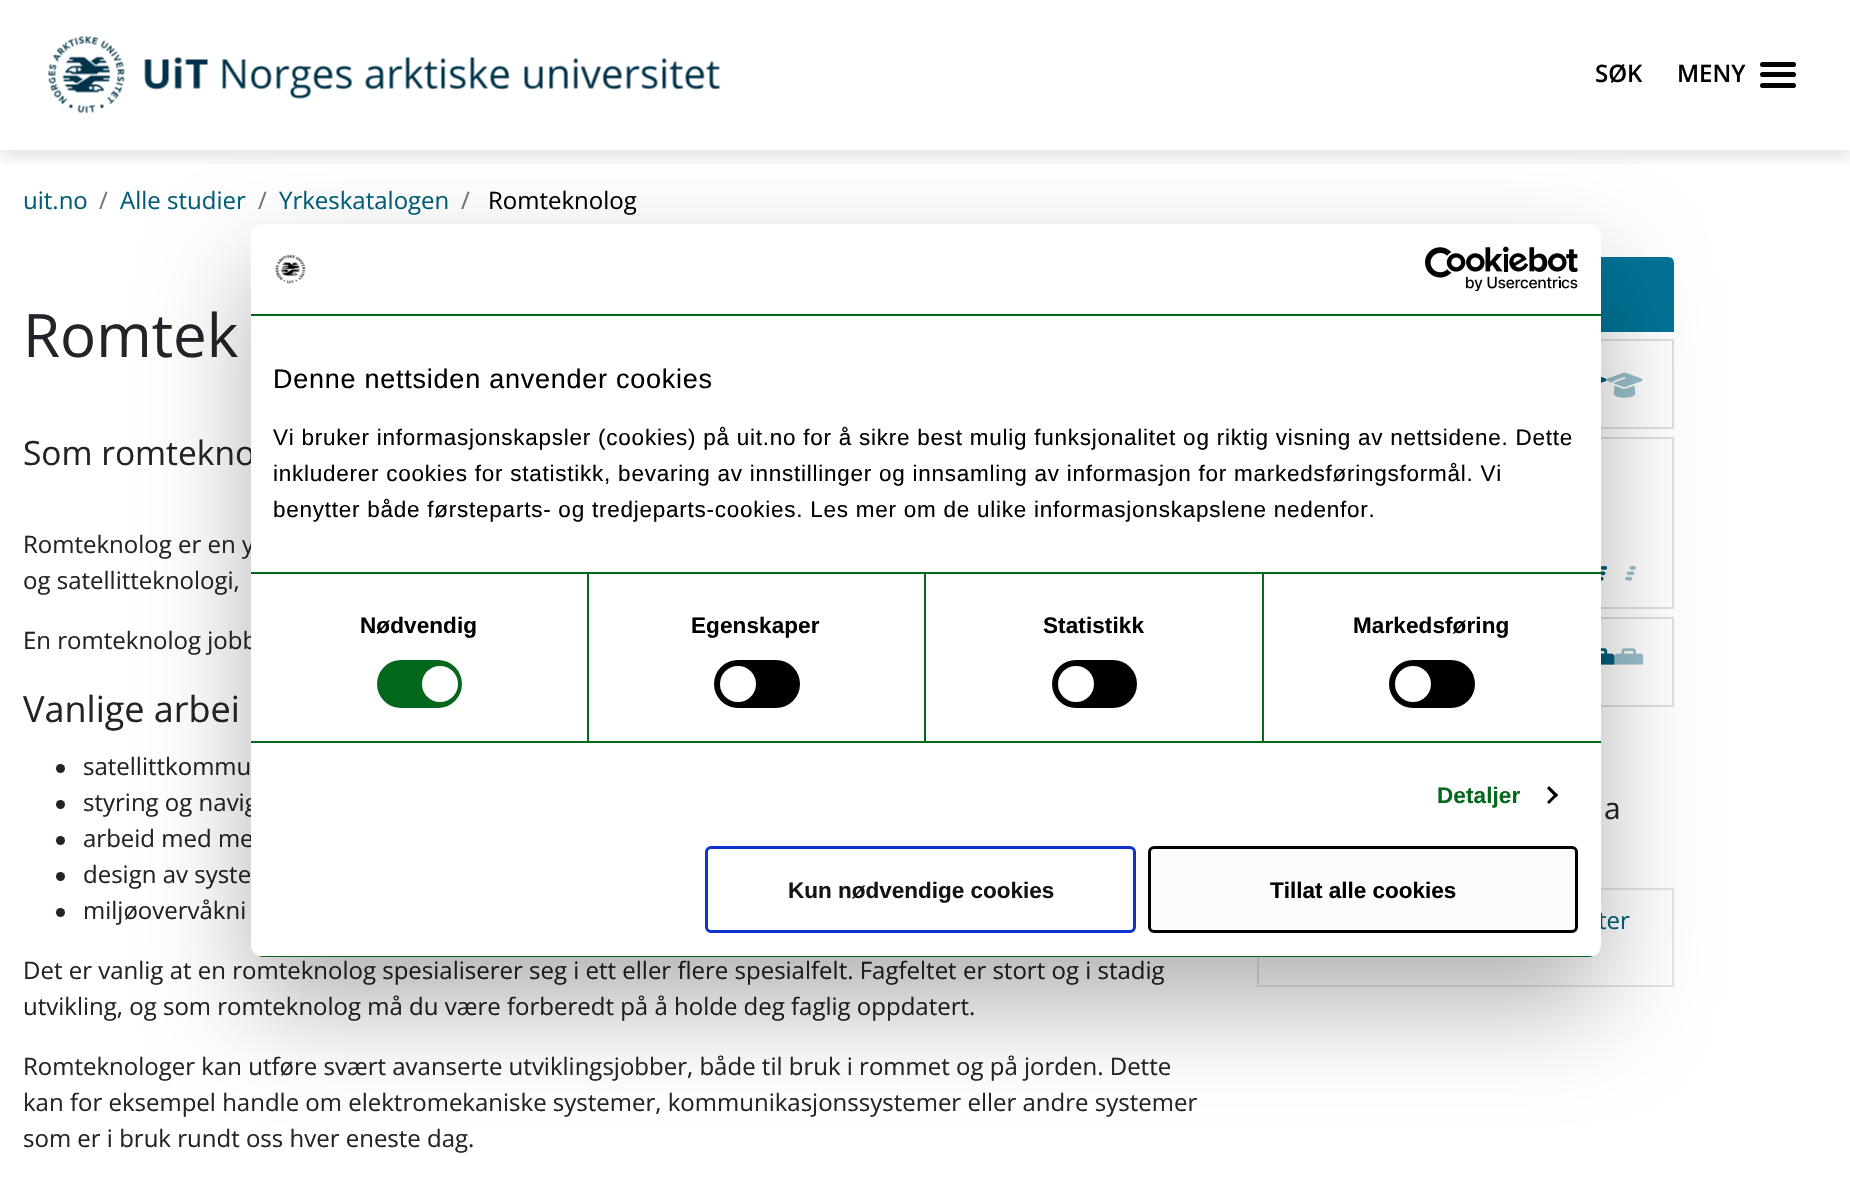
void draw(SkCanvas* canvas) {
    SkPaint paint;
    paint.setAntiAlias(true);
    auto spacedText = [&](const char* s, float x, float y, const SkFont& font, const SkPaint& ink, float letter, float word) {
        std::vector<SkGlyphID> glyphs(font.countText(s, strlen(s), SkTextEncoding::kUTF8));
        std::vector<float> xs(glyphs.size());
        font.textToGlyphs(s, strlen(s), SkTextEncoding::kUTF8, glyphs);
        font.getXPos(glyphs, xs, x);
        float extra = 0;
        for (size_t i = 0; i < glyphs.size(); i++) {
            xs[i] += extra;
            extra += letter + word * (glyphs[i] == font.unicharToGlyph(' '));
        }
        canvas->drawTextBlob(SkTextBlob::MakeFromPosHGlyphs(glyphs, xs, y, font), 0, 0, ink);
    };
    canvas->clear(0xFFFFFFFF);
    canvas->save();
    canvas->clipRect(SkRect::MakeXYWH(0, 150, 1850, 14));
    paint.setColor(0x1A000000);
    paint.setMaskFilter(SkMaskFilter::MakeBlur(kNormal_SkBlurStyle, 7.5f));
    canvas->drawRect(SkRect::MakeXYWH(0, 8, 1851, 150), paint);
    paint.setMaskFilter(nullptr);
    canvas->restore();
    canvas->drawImageRect(SkImages::DeferredFromEncodedData(SkData::MakeFromFileName("img1.png")), SkRect::MakeXYWH(48, 36, 672, 78), SkSamplingOptions());
    SkFont font1(fontMgr->matchFamilyStyle("Open Sans", SkFontStyle(600, SkFontStyle::kNormal_Width, SkFontStyle::kUpright_Slant)), 24);
    font1.setSubpixel(true);
    paint.setColor(0xFF000000);
    canvas->drawString("SØK", 1595, 82, font1, paint);
    canvas->drawString("MENY", 1677, 82, font1, paint);
    canvas->drawRoundRect(SkRect::MakeXYWH(1760, 62, 36, 5), 2.5f, 2.5f, paint);
    canvas->drawRoundRect(SkRect::MakeXYWH(1760, 72, 36, 5), 2.5f, 2.5f, paint);
    canvas->drawRoundRect(SkRect::MakeXYWH(1760, 83, 36, 5), 2.5f, 2.5f, paint);
    SkFont font2(fontMgr->matchFamilyStyle("Open Sans", SkFontStyle::Normal()), 24);
    font2.setSubpixel(true);
    paint.setColor(0xFF005E7A);
    canvas->drawString("uit.no", 23, 209, font2, paint);
    paint.setColor(0xFF6C757D);
    canvas->drawString("/", 99, 209, font2, paint);
    paint.setColor(0xFF005E7A);
    canvas->drawString("Alle studier", 120, 209, font2, paint);
    paint.setColor(0xFF6C757D);
    canvas->drawString("/", 258, 209, font2, paint);
    paint.setColor(0xFF005E7A);
    canvas->drawString("Yrkeskatalogen", 279, 209, font2, paint);
    paint.setColor(0xFF6C757D);
    canvas->drawString("/", 461, 209, font2, paint);
    paint.setColor(0xFF000000);
    canvas->drawString("Romteknolog", 488, 209, font2, paint);
    SkFont font3(fontMgr->matchFamilyStyle("Open Sans", SkFontStyle::Normal()), 60);
    font3.setSubpixel(true);
    paint.setColor(0xFF212529);
    canvas->drawString("Romtek", 23, 357, font3, paint);
    SkFont font4(fontMgr->matchFamilyStyle("Open Sans", SkFontStyle::Normal()), 33.5f);
    font4.setSubpixel(true);
    canvas->drawString("Som romtekno", 23, 465, font4, paint);
    canvas->drawString("Romteknolog er en y", 23, 553, font2, paint);
    canvas->drawString("og satellitteknologi,", 23, 589, font2, paint);
    canvas->drawString("En romteknolog jobb", 23, 649, font2, paint);
    SkFont font5(fontMgr->matchFamilyStyle("Open Sans", SkFontStyle::Normal()), 36);
    font5.setSubpixel(true);
    canvas->drawString("Vanlige arbei", 23, 722, font5, paint);
    canvas->drawCircle(60.5f, 768.5f, 4.5f, paint);
    canvas->drawString("satellittkommu", 83, 775, font2, paint);
    canvas->drawCircle(60.5f, 804.5f, 4.5f, paint);
    canvas->drawString("styring og navig", 83, 811, font2, paint);
    canvas->drawCircle(60.5f, 840.5f, 4.5f, paint);
    canvas->drawString("arbeid med me", 83, 847, font2, paint);
    canvas->drawCircle(60.5f, 876.5f, 4.5f, paint);
    canvas->drawString("design av syste", 83, 883, font2, paint);
    canvas->drawCircle(60.5f, 912.5f, 4.5f, paint);
    canvas->drawString("miljøovervåkni", 83, 919, font2, paint);
    canvas->drawString("Det er vanlig at en romteknolog spesialiserer seg i ett eller flere spesialfelt. Fagfeltet er stort og i stadig", 23, 979, font2, paint);
    canvas->drawString("utvikling, og som romteknolog må du være forberedt på å holde deg faglig oppdatert.", 23, 1015, font2, paint);
    canvas->drawString("Romteknologer kan utføre svært avanserte utviklingsjobber, både til bruk i rommet og på jorden. Dette", 23, 1075, font2, paint);
    canvas->drawString("kan for eksempel handle om elektromekaniske systemer, kommunikasjonssystemer eller andre systemer", 23, 1111, font2, paint);
    canvas->drawString("som er i bruk rundt oss hver eneste dag.", 23, 1147, font2, paint);
    paint.setColor(0xFF007396);
    canvas->drawPath(SkPathBuilder().moveTo(1263, 258).lineTo(1668, 258).cubicTo(1671, 258, 1673, 260, 1673, 263).lineTo(1673, 331).lineTo(1258, 331).lineTo(1258, 263).cubicTo(1258, 260, 1260, 258, 1263, 258).close().detach(), paint);
    paint.setStyle(SkPaint::kStroke_Style);
    paint.setStrokeWidth(2);
    canvas->drawPath(SkPathBuilder().moveTo(1263, 258).lineTo(1668, 258).cubicTo(1671, 258, 1673, 260, 1673, 263).lineTo(1673, 331).lineTo(1258, 331).lineTo(1258, 263).cubicTo(1258, 260, 1260, 258, 1263, 258).close().detach(), paint);
    paint.setColor(0xFFDFDFDF);
    canvas->drawRect(SkRect::MakeXYWH(1258, 340, 415, 88), paint);
    canvas->drawImageRect(SkImages::DeferredFromEncodedData(SkData::MakeFromFileName("img3.png")), SkRect::MakeXYWH(1601, 376, 6, 7), SkSamplingOptions());
    canvas->drawImageRect(SkImages::DeferredFromEncodedData(SkData::MakeFromFileName("img2.png")), SkRect::MakeXYWH(1601, 372, 42, 26), SkSamplingOptions());
    canvas->drawRect(SkRect::MakeXYWH(1258, 438, 415, 170), paint);
    canvas->drawImageRect(SkImages::DeferredFromEncodedData(SkData::MakeFromFileName("img4.png")), SkRect::MakeXYWH(1601, 566, 7, 15), SkSamplingOptions());
    canvas->drawImageRect(SkImages::DeferredFromEncodedData(SkData::MakeFromFileName("img5.png")), SkRect::MakeXYWH(1601, 566, 35, 15), SkSamplingOptions());
    canvas->drawRect(SkRect::MakeXYWH(1258, 618, 415, 88), paint);
    canvas->drawImageRect(SkImages::DeferredFromEncodedData(SkData::MakeFromFileName("img6.png")), SkRect::MakeXYWH(1601, 648, 14, 17), SkSamplingOptions());
    canvas->drawImageRect(SkImages::DeferredFromEncodedData(SkData::MakeFromFileName("img7.png")), SkRect::MakeXYWH(1601, 648, 43, 17), SkSamplingOptions());
    SkFont font6(fontMgr->matchFamilyStyle("Open Sans", SkFontStyle::Normal()), 30);
    font6.setSubpixel(true);
    paint.setStyle(SkPaint::kFill_Style);
    paint.setColor(0xFF212529);
    canvas->drawString("a", 1604, 819, font6, paint);
    paint.setStyle(SkPaint::kStroke_Style);
    paint.setColor(0xFFE4E4E4);
    canvas->drawRect(SkRect::MakeXYWH(1258, 889, 415, 97), paint);
    paint.setStyle(SkPaint::kFill_Style);
    paint.setColor(0xFF005E7A);
    canvas->drawString("ter", 1598, 929, font2, paint);
    paint.setColor(0x4D000000);
    paint.setMaskFilter(SkMaskFilter::MakeBlur(kNormal_SkBlurStyle, 51));
    canvas->drawRoundRect(SkRect::MakeXYWH(251, 272, 1350, 733), 12, 12, paint);
    paint.setMaskFilter(nullptr);
    paint.setColor(0xFFFFFFFF);
    canvas->drawRoundRect(SkRect::MakeXYWH(251, 224, 1350, 733), 12, 12, paint);
    paint.setColor(0xFF03681B);
    canvas->drawRect(SkRect::MakeXYWH(251, 314, 1350, 2), paint);
    canvas->drawImageRect(SkImages::DeferredFromEncodedData(SkData::MakeFromFileName("img8.png")), SkRect::MakeXYWH(275, 254, 31, 30), SkSamplingOptions());
    canvas->drawImageRect(SkImages::DeferredFromEncodedData(SkData::MakeFromFileName("img9.png")), SkRect::MakeXYWH(1425, 246, 153, 45), SkSamplingOptions());
    canvas->drawRect(SkRect::MakeXYWH(587, 573, 2, 168), paint);
    canvas->drawRect(SkRect::MakeXYWH(924, 573, 2, 168), paint);
    canvas->drawRect(SkRect::MakeXYWH(1262, 573, 2, 168), paint);
    canvas->drawRect(SkRect::MakeXYWH(251, 572, 1350, 2), paint);
    SkFont font7(fontMgr->matchFamilyStyle("Liberation Sans", SkFontStyle::Normal()), 27);
    font7.setSubpixel(true);
    paint.setColor(0xFF000000);
    spacedText("Denne nettsiden anvender cookies", 273, 388, font7, paint, 0.75f, 0);
    SkFont font8(fontMgr->matchFamilyStyle("Liberation Sans", SkFontStyle::Normal()), 22.5f);
    font8.setSubpixel(true);
    spacedText("Vi bruker informasjonskapsler (cookies) på uit.no for å sikre best mulig funksjonalitet og riktig visning av nettsidene. Dette", 273, 445, font8, paint, 0.75f, 0);
    spacedText("inkluderer cookies for statistikk, bevaring av innstillinger og innsamling av informasjon for markedsføringsformål. Vi", 273, 481, font8, paint, 0.75f, 0);
    spacedText("benytter både førsteparts- og tredjeparts-cookies. Les mer om de ulike informasjonskapslene nedenfor.", 273, 517, font8, paint, 0.75f, 0);
    paint.setColor(0xFF03681B);
    canvas->drawRect(SkRect::MakeXYWH(251, 741, 1350, 2), paint);
    SkFont font9(fontMgr->matchFamilyStyle("Liberation Sans", SkFontStyle::Bold()), 22.5f);
    font9.setSubpixel(true);
    paint.setColor(0xFF000000);
    spacedText("Nødvendig", 360, 633, font9, paint, 0.1f, 0);
    paint.setColor(0xFF03681B);
    canvas->drawRoundRect(SkRect::MakeXYWH(377, 660, 85, 48), 24, 24, paint);
    paint.setColor(0xFFFFFFFF);
    canvas->drawCircle(440, 684, 18, paint);
    paint.setColor(0xFF000000);
    spacedText("Egenskaper", 691, 633, font9, paint, 0.1f, 0);
    canvas->drawRoundRect(SkRect::MakeXYWH(714, 660, 86, 48), 24, 24, paint);
    paint.setColor(0xFFFFFFFF);
    canvas->drawCircle(738, 684, 18, paint);
    paint.setColor(0xFF000000);
    spacedText("Statistikk", 1043, 633, font9, paint, 0.1f, 0);
    canvas->drawRoundRect(SkRect::MakeXYWH(1052, 660, 85, 48), 24, 24, paint);
    paint.setColor(0xFFFFFFFF);
    canvas->drawCircle(1076, 684, 18, paint);
    paint.setColor(0xFF000000);
    spacedText("Markedsføring", 1353, 633, font9, paint, 0.1f, 0);
    canvas->drawRoundRect(SkRect::MakeXYWH(1389, 660, 86, 48), 24, 24, paint);
    paint.setColor(0xFFFFFFFF);
    canvas->drawCircle(1413, 684, 18, paint);
    paint.setColor(0xFF03681B);
    spacedText("Detaljer", 1437, 803, font9, paint, 0.1f, 0);
    paint.setColor(0xFF000000);
    canvas->drawPath(SkPathBuilder().moveTo(1549, 786).lineTo(1558, 795).lineTo(1556, 797.5f).lineTo(1547, 788.5f).close().detach(), paint);
    canvas->drawPath(SkPathBuilder().moveTo(1556, 793).lineTo(1558, 795).lineTo(1549, 804).lineTo(1547, 802).close().detach(), paint);
    canvas->save();
    canvas->clipPath(SkPathBuilder().moveTo(263, 224).lineTo(1589, 224).cubicTo(1595.5f, 224, 1601, 229.5f, 1601, 236).lineTo(1601, 945).cubicTo(1601, 951.5f, 1595.5f, 957, 1589, 957).lineTo(263, 957).cubicTo(256.5f, 957, 251, 951.5f, 251, 945).lineTo(251, 236).cubicTo(251, 229.5f, 256.5f, 224, 263, 224).close().detach(), true);
    paint.setColor(0xFF03681B);
    canvas->drawRect(SkRect::MakeXYWH(251, 956, 1350, 1), paint);
    canvas->restore();
    paint.setStyle(SkPaint::kStroke_Style);
    paint.setStrokeWidth(3);
    paint.setColor(0xFF1032CF);
    canvas->drawRoundRect(SkRect::MakeXYWH(706.5f, 847.5f, 428, 84), 4.5f, 4.5f, paint);
    paint.setStyle(SkPaint::kFill_Style);
    paint.setColor(0xFF141414);
    canvas->drawString("Kun nødvendige cookies", 788, 898, font9, paint);
    paint.setColor(0xFFFCFCFC);
    canvas->drawRoundRect(SkRect::MakeXYWH(1149.5f, 847.5f, 427, 84), 4.5f, 4.5f, paint);
    paint.setStyle(SkPaint::kStroke_Style);
    paint.setColor(0xFF000000);
    canvas->drawRoundRect(SkRect::MakeXYWH(1149.5f, 847.5f, 427, 84), 4.5f, 4.5f, paint);
    paint.setStyle(SkPaint::kFill_Style);
    canvas->drawString("Tillat alle cookies", 1270, 898, font9, paint);
}
